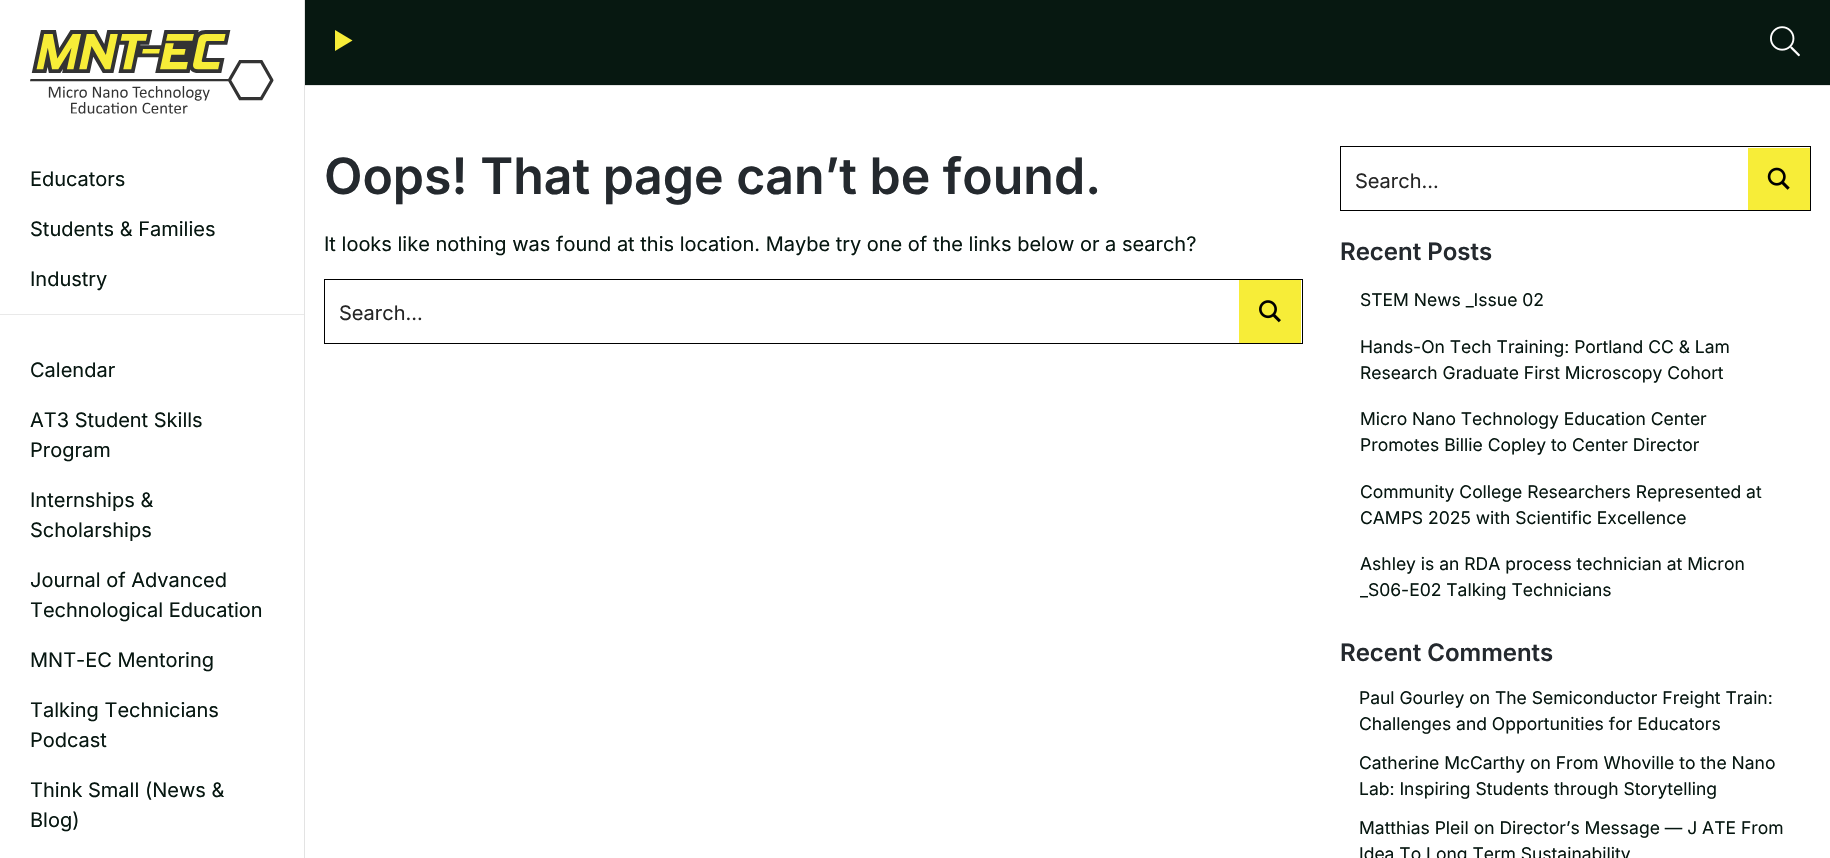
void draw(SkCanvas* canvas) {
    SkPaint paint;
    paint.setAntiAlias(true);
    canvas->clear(0xFFFFFFFF);
    paint.setColor(0xFFE3E3E3);
    canvas->drawRect(SkRect::MakeXYWH(304, 0, 1, 858), paint);
    canvas->drawImageRect(SkImages::DeferredFromEncodedData(SkData::MakeFromFileName("img1.png")), SkRect::MakeXYWH(30, 30, 244, 84), SkSamplingOptions());
    paint.setColor(0xFFE9E9E9);
    canvas->drawRect(SkRect::MakeXYWH(0, 314, 304, 1), paint);
    SkFont font1(fontMgr->matchFamilyStyle("Inter", SkFontStyle::Normal()), 20);
    font1.setSubpixel(true);
    paint.setColor(0xFF071711);
    canvas->drawString("Educators", 30, 186, font1, paint);
    canvas->drawString("Students & Families", 30, 236, font1, paint);
    canvas->drawString("Industry", 30, 286, font1, paint);
    canvas->drawString("Calendar", 30, 377, font1, paint);
    canvas->drawString("AT3 Student Skills", 30, 427, font1, paint);
    canvas->drawString("Program", 30, 457, font1, paint);
    canvas->drawString("Internships &", 30, 507, font1, paint);
    canvas->drawString("Scholarships", 30, 537, font1, paint);
    canvas->drawString("Journal of Advanced", 30, 587, font1, paint);
    canvas->drawString("Technological Education", 30, 617, font1, paint);
    canvas->drawString("MNT-EC Mentoring", 30, 667, font1, paint);
    canvas->drawString("Talking Technicians", 30, 717, font1, paint);
    canvas->drawString("Podcast", 30, 747, font1, paint);
    canvas->drawString("Think Small (News &", 30, 797, font1, paint);
    canvas->drawString("Blog)", 30, 827, font1, paint);
    paint.setColor(0xFF071811);
    canvas->drawRect(SkRect::MakeXYWH(305, 0, 1525, 85), paint);
    paint.setColor(0xFFE3E3E3);
    canvas->drawRect(SkRect::MakeXYWH(305, 85, 1525, 1), paint);
    paint.setColor(0xFFF7ED38);
    canvas->drawPath(SkPathBuilder().moveTo(352.5f, 40.5f).lineTo(335, 51).lineTo(335, 30).close().detach(), paint);
    canvas->drawImageRect(SkImages::DeferredFromEncodedData(SkData::MakeFromFileName("img2.png")), SkRect::MakeXYWH(1770, 26, 30, 31), SkSamplingOptions());
    SkFont font2(fontMgr->matchFamilyStyle("Inter", SkFontStyle(600, SkFontStyle::kNormal_Width, SkFontStyle::kUpright_Slant)), 50);
    font2.setSubpixel(true);
    paint.setColor(0xFF24292E);
    canvas->drawString("Oops! That page can’t be found.", 324, 194, font2, paint);
    paint.setColor(0xFF071711);
    canvas->drawString("It looks like nothing was found at this location. Maybe try one of the links below or a search?", 324, 251, font1, paint);
    paint.setStyle(SkPaint::kStroke_Style);
    paint.setStrokeWidth(1);
    paint.setColor(0xFF000000);
    canvas->drawRect(SkRect::MakeXYWH(324.5f, 279.5f, 978, 64), paint);
    paint.setStyle(SkPaint::kFill_Style);
    paint.setColor(0xFF262626);
    canvas->drawString("Search...", 339, 320, font1, paint);
    paint.setColor(0xFFF7ED38);
    canvas->drawRect(SkRect::MakeXYWH(1239, 280, 62, 63), paint);
    canvas->drawImageRect(SkImages::DeferredFromEncodedData(SkData::MakeFromFileName("img3.png")), SkRect::MakeXYWH(1259, 300, 22, 23), SkSamplingOptions());
    paint.setStyle(SkPaint::kStroke_Style);
    paint.setColor(0xFF000000);
    canvas->drawRect(SkRect::MakeXYWH(1340.5f, 146.5f, 470, 64), paint);
    paint.setStyle(SkPaint::kFill_Style);
    paint.setColor(0xFF262626);
    canvas->drawString("Search...", 1355, 188, font1, paint);
    paint.setColor(0xFFF7ED38);
    canvas->drawRect(SkRect::MakeXYWH(1748, 148, 62, 62), paint);
    canvas->drawImageRect(SkImages::DeferredFromEncodedData(SkData::MakeFromFileName("img4.png")), SkRect::MakeXYWH(1767, 167, 23, 23), SkSamplingOptions());
    SkFont font3(fontMgr->matchFamilyStyle("Inter", SkFontStyle(600, SkFontStyle::kNormal_Width, SkFontStyle::kUpright_Slant)), 24);
    font3.setSubpixel(true);
    paint.setColor(0xFF24292E);
    canvas->drawString("Recent Posts", 1340, 260, font3, paint);
    SkFont font4(fontMgr->matchFamilyStyle("Inter", SkFontStyle::Normal()), 17.5f);
    font4.setSubpixel(true);
    paint.setColor(0xFF071711);
    canvas->drawString("STEM News _Issue 02", 1360, 306, font4, paint);
    canvas->drawString("Hands-On Tech Training: Portland CC & Lam", 1360, 353, font4, paint);
    canvas->drawString("Research Graduate First Microscopy Cohort", 1360, 379, font4, paint);
    canvas->drawString("Micro Nano Technology Education Center", 1360, 425, font4, paint);
    canvas->drawString("Promotes Billie Copley to Center Director", 1360, 451, font4, paint);
    canvas->drawString("Community College Researchers Represented at", 1360, 498, font4, paint);
    canvas->drawString("CAMPS 2025 with Scientific Excellence", 1360, 524, font4, paint);
    canvas->drawString("Ashley is an RDA process technician at Micron", 1360, 570, font4, paint);
    canvas->drawString("_S06-E02 Talking Technicians", 1360, 596, font4, paint);
    paint.setColor(0xFF24292E);
    canvas->drawString("Recent Comments", 1340, 661, font3, paint);
    paint.setColor(0xFF071711);
    canvas->drawString("Paul Gourley on The Semiconductor Freight Train:", 1359, 704, font4, paint);
    canvas->drawString("Challenges and Opportunities for Educators", 1359, 730, font4, paint);
    canvas->drawString("Catherine McCarthy on From Whoville to the Nano", 1359, 769, font4, paint);
    canvas->drawString("Lab: Inspiring Students through Storytelling", 1359, 795, font4, paint);
    canvas->drawString("Matthias Pleil on Director’s Message — J ATE From", 1359, 834, font4, paint);
    canvas->drawString("Idea To Long Term Sustainability", 1359, 860, font4, paint);
}
